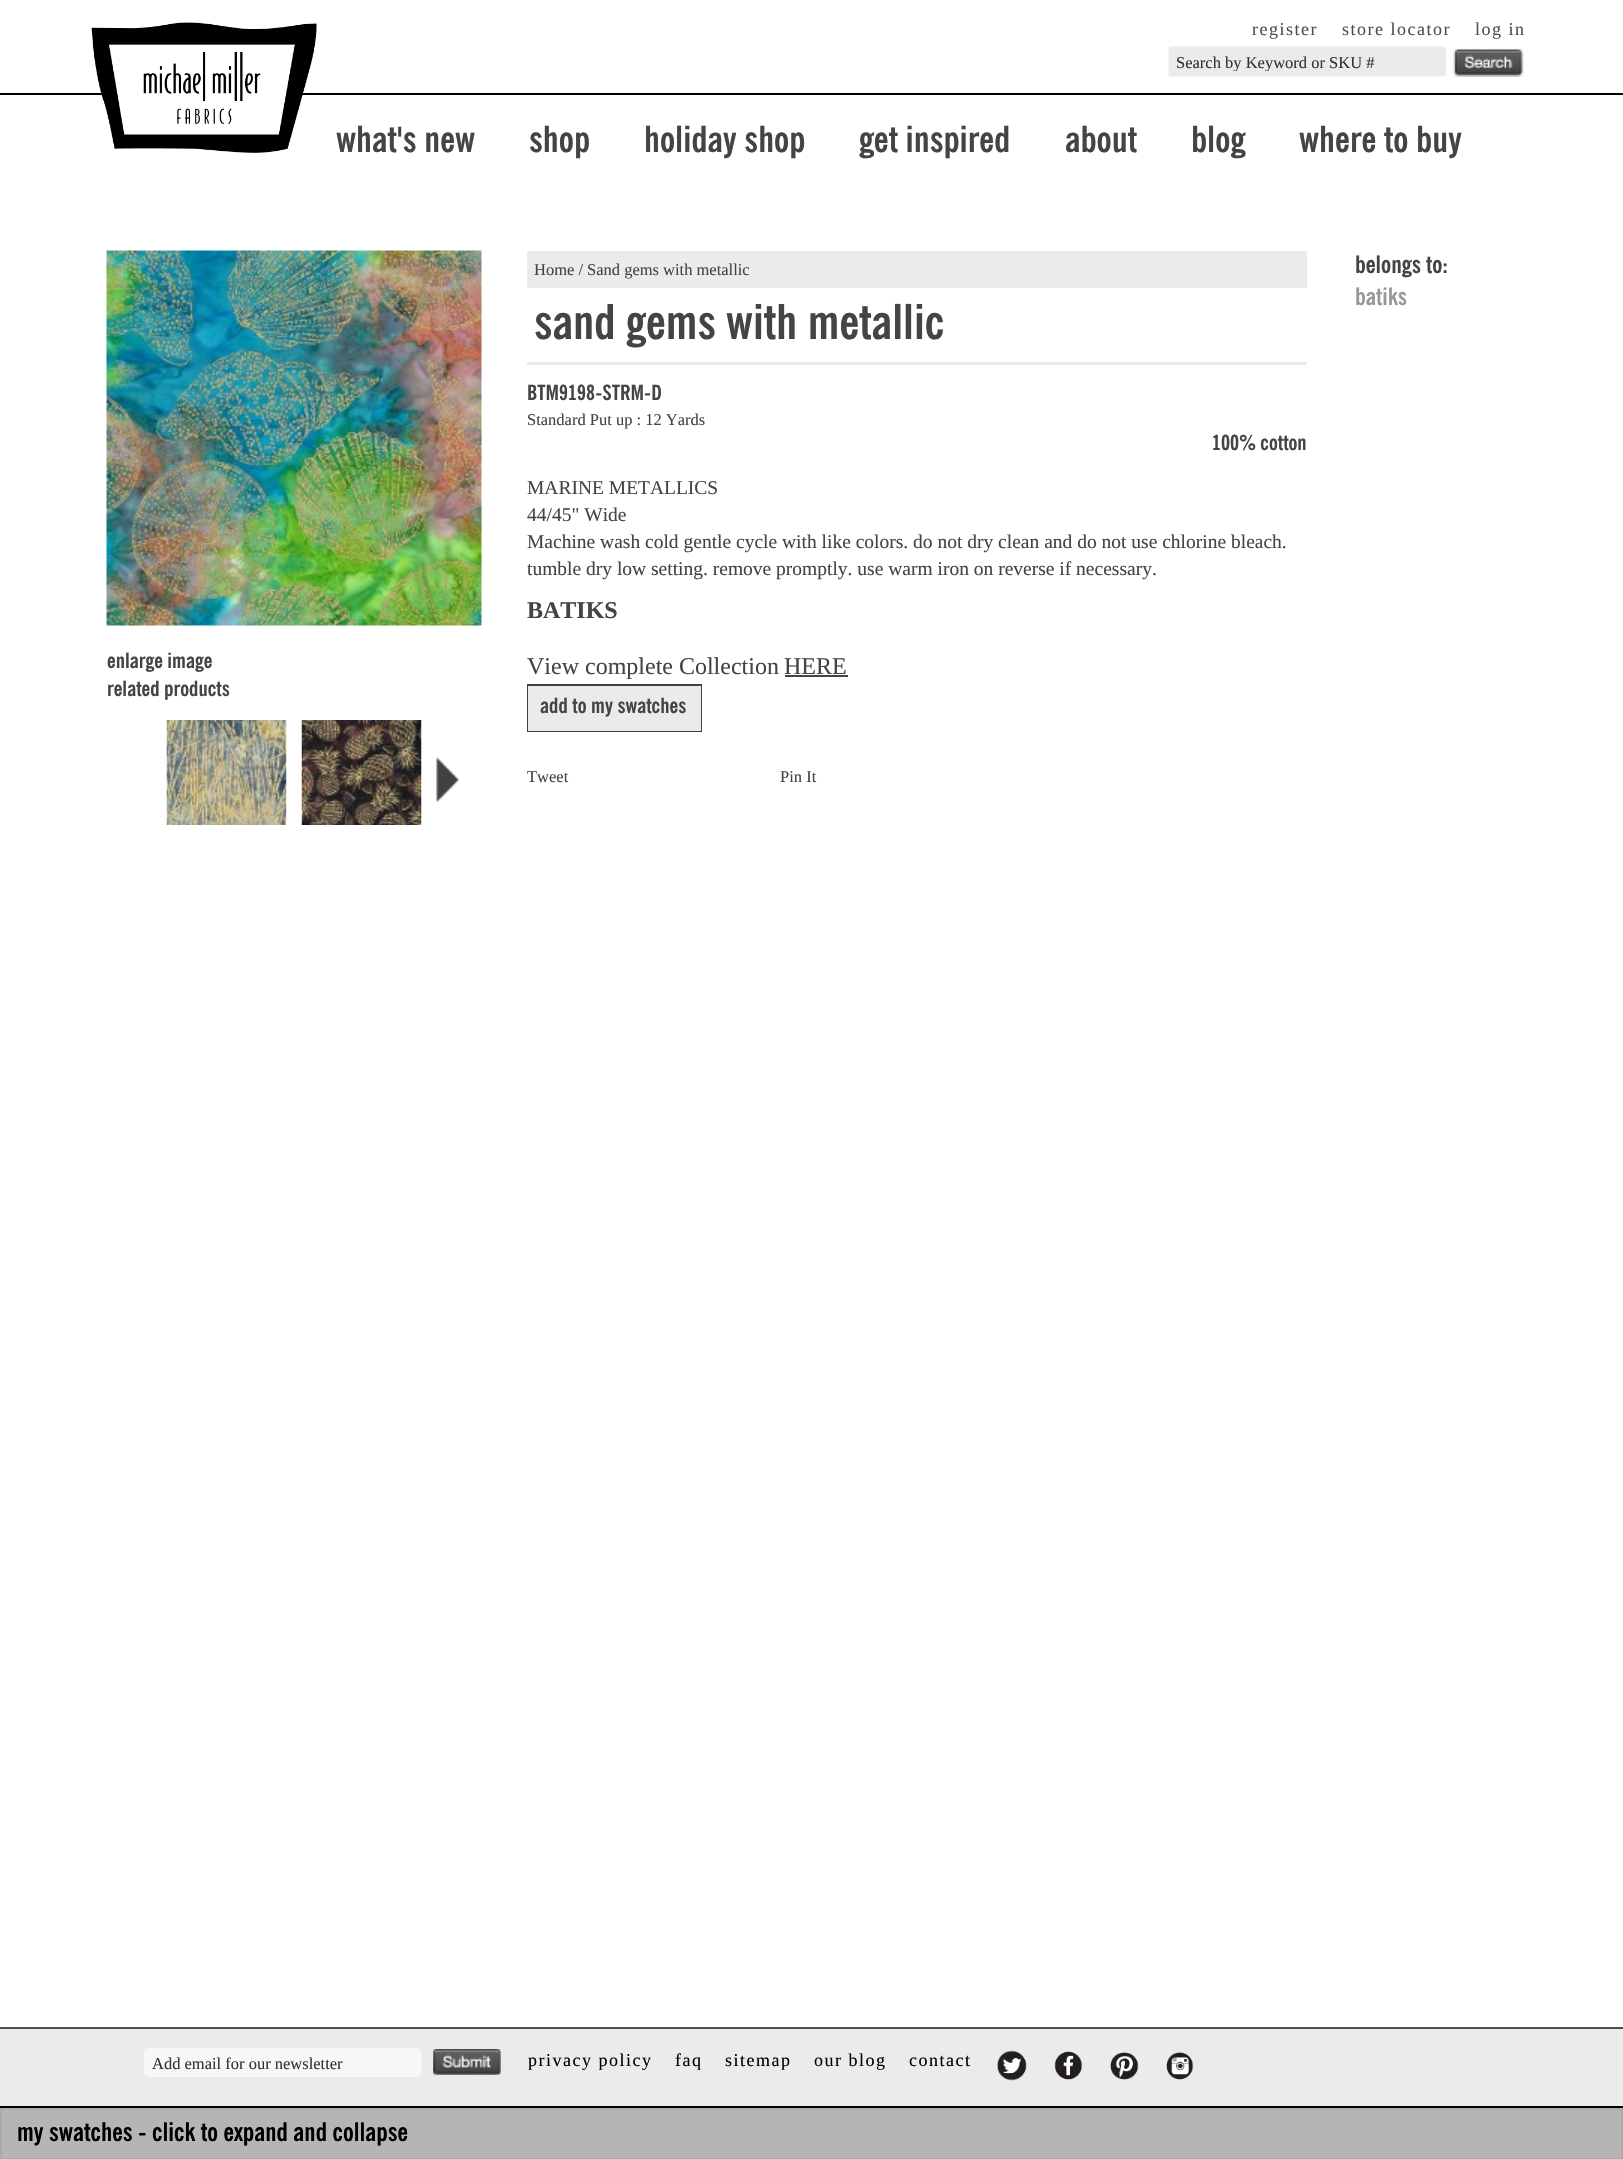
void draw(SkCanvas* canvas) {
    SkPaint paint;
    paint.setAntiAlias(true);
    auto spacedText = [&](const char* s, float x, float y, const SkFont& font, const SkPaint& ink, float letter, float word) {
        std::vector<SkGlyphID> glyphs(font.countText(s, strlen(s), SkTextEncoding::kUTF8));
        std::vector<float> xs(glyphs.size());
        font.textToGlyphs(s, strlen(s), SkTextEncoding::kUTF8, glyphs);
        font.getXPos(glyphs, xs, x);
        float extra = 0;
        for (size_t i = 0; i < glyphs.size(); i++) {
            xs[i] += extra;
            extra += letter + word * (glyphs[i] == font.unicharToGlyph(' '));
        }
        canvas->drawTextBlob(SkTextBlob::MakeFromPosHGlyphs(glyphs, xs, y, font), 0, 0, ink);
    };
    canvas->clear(0xFFFFFFFF);
    paint.setColor(0xFF000000);
    canvas->drawRect(SkRect::MakeXYWH(0, 93, 1623, 2), paint);
    canvas->drawImageRect(SkImages::DeferredFromEncodedData(SkData::MakeFromFileName("img1.png")), SkRect::MakeXYWH(91, 22, 226, 131), SkSamplingOptions());
    SkFont font1(fontMgr->matchFamilyStyle("Liberation Serif", SkFontStyle::Normal()), 18);
    font1.setSubpixel(true);
    paint.setColor(0xFF4E4E4E);
    spacedText("register", 1252, 35, font1, paint, 1.5f, 0);
    spacedText("store locator", 1342, 35, font1, paint, 1.5f, 0);
    spacedText("log in", 1475, 35, font1, paint, 1.5f, 0);
    canvas->drawImageRect(SkImages::DeferredFromEncodedData(SkData::MakeFromFileName("img2.png")), SkRect::MakeXYWH(1168, 46, 278, 31), SkSamplingOptions());
    canvas->save();
    canvas->clipRect(SkRect::MakeXYWH(1176, 53, 263, 18));
    SkFont font2(fontMgr->matchFamilyStyle("Liberation Serif", SkFontStyle::Normal()), 16.5f);
    font2.setSubpixel(true);
    paint.setColor(0xFF333333);
    canvas->drawString("Search by Keyword or SKU #", 1176, 68, font2, paint);
    canvas->restore();
    canvas->drawImageRect(SkImages::DeferredFromEncodedData(SkData::MakeFromFileName("img3.png")), SkRect::MakeXYWH(1453, 48, 71, 29), SkSamplingOptions());
    canvas->drawImageRect(SkImages::DeferredFromEncodedData(SkData::MakeFromFileName("img4.png")), SkRect::MakeXYWH(1453, 52, 69, 25), SkSamplingOptions());
    SkFont font3(fontMgr->matchFamilyStyle("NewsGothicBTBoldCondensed", SkFontStyle::Bold()), 36);
    font3.setSubpixel(true);
    paint.setColor(0xFF444444);
    canvas->drawString("what's new", 336, 152, font3, paint);
    canvas->drawString("shop", 529, 152, font3, paint);
    canvas->drawString("holiday shop", 644, 152, font3, paint);
    canvas->drawString("get inspired", 859, 152, font3, paint);
    canvas->drawString("about", 1065, 152, font3, paint);
    canvas->drawString("blog", 1191, 152, font3, paint);
    canvas->drawString("where to buy", 1299, 152, font3, paint);
    SkFont font4(fontMgr->matchFamilyStyle("NewsGothicBTBoldCondensed", SkFontStyle::Bold()), 24);
    font4.setSubpixel(true);
    canvas->drawString("belongs to:", 1355, 273, font4, paint);
    paint.setColor(0xFF979797);
    canvas->drawString("batiks", 1355, 305, font4, paint);
    canvas->drawImageRect(SkImages::DeferredFromEncodedData(SkData::MakeFromFileName("img5.png")), SkRect::MakeXYWH(106, 250, 376, 376), SkSamplingOptions());
    SkFont font5(fontMgr->matchFamilyStyle("NewsGothicBTBoldCondensed", SkFontStyle::Bold()), 21);
    font5.setSubpixel(true);
    paint.setColor(0xFF444444);
    canvas->drawString("enlarge image", 107, 668, font5, paint);
    canvas->drawString("related products", 107, 696, font5, paint);
    canvas->drawImageRect(SkImages::DeferredFromEncodedData(SkData::MakeFromFileName("img6.png")), SkRect::MakeXYWH(166, 720, 121, 105), SkSamplingOptions());
    canvas->drawImageRect(SkImages::DeferredFromEncodedData(SkData::MakeFromFileName("img7.png")), SkRect::MakeXYWH(301, 720, 121, 105), SkSamplingOptions());
    paint.setColor(0xFFEBEBEB);
    canvas->drawRect(SkRect::MakeXYWH(527, 362, 780, 3), paint);
    SkFont font6(fontMgr->matchFamilyStyle("NewsGothicBTBoldCondensed", SkFontStyle::Bold()), 48);
    font6.setSubpixel(true);
    paint.setColor(0xFF444444);
    canvas->drawString("sand gems with metallic", 534, 339, font6, paint);
    canvas->drawString("BTM9198-STRM-D", 527, 400, font5, paint);
    canvas->drawString("Standard Put up : 12 Yards", 527, 425, font2, paint);
    canvas->drawString("100% cotton", 1212, 450, font5, paint);
    SkFont font7(fontMgr->matchFamilyStyle("Liberation Serif", SkFontStyle::Normal()), 19.5f);
    font7.setSubpixel(true);
    canvas->drawString("MARINE METALLICS", 527, 494, font7, paint);
    canvas->drawString("44/45\" Wide", 527, 521, font7, paint);
    canvas->drawString("Machine wash cold gentle cycle with like colors. do not dry clean and do not use chlorine bleach.", 527, 548, font7, paint);
    canvas->drawString("tumble dry low setting. remove promptly. use warm iron on reverse if necessary.", 527, 575, font7, paint);
    SkFont font8(fontMgr->matchFamilyStyle("Liberation Serif", SkFontStyle::Bold()), 24);
    font8.setSubpixel(true);
    canvas->drawString("BATIKS", 527, 618, font8, paint);
    SkFont font9(fontMgr->matchFamilyStyle("Liberation Serif", SkFontStyle::Normal()), 24);
    font9.setSubpixel(true);
    canvas->drawString("View complete Collection", 527, 674, font9, paint);
    canvas->drawString("HERE", 784, 674, font9, paint);
    canvas->drawRect(SkRect::MakeXYWH(785, 675, 63, 2), paint);
    paint.setStyle(SkPaint::kStroke_Style);
    paint.setStrokeWidth(2);
    paint.setColor(0xFF414141);
    canvas->drawRect(SkRect::MakeXYWH(528, 685, 173, 46), paint);
    paint.setStyle(SkPaint::kFill_Style);
    paint.setColor(0xFFEBEBEB);
    canvas->drawRect(SkRect::MakeXYWH(528, 686, 173, 45), paint);
    paint.setColor(0xFF444444);
    canvas->drawString("add to my swatches", 540, 713, font5, paint);
    canvas->drawString("Tweet", 527, 782, font2, paint);
    canvas->drawString("Pin It", 780, 782, font2, paint);
    paint.setColor(0xFFEBEBEB);
    canvas->drawRect(SkRect::MakeXYWH(527, 251, 780, 37), paint);
    paint.setColor(0xFF444444);
    canvas->drawString("Home /", 534, 275, font2, paint);
    canvas->drawString("Sand gems with metallic", 587, 275, font2, paint);
    paint.setColor(0xFFEBEBEB);
    canvas->drawRect(SkRect::MakeXYWH(0, 2029, 1623, 77), paint);
    paint.setColor(0xFF4E4E4E);
    canvas->drawRect(SkRect::MakeXYWH(0, 2027, 1623, 2), paint);
    canvas->drawImageRect(SkImages::DeferredFromEncodedData(SkData::MakeFromFileName("img8.png")), SkRect::MakeXYWH(144, 2048, 278, 29), SkSamplingOptions());
    paint.setColor(0xFF333333);
    canvas->drawString("Add email for our newsletter", 152, 2069, font2, paint);
    canvas->drawImageRect(SkImages::DeferredFromEncodedData(SkData::MakeFromFileName("img9.png")), SkRect::MakeXYWH(433, 2049, 68, 26), SkSamplingOptions());
    canvas->drawImageRect(SkImages::DeferredFromEncodedData(SkData::MakeFromFileName("img10.png")), SkRect::MakeXYWH(433, 2049, 68, 26), SkSamplingOptions());
    paint.setColor(0xFF000000);
    spacedText("privacy policy", 528, 2066, font1, paint, 1.5f, 0);
    spacedText("faq", 675, 2066, font1, paint, 1.5f, 0);
    spacedText("sitemap", 725, 2066, font1, paint, 1.5f, 0);
    spacedText("our blog", 814, 2066, font1, paint, 1.5f, 0);
    spacedText("contact", 909, 2066, font1, paint, 1.5f, 0);
    canvas->drawImageRect(SkImages::DeferredFromEncodedData(SkData::MakeFromFileName("img11.png")), SkRect::MakeXYWH(997, 2050, 30, 31), SkSamplingOptions());
    canvas->drawImageRect(SkImages::DeferredFromEncodedData(SkData::MakeFromFileName("img12.png")), SkRect::MakeXYWH(1054, 2051, 29, 29), SkSamplingOptions());
    canvas->drawImageRect(SkImages::DeferredFromEncodedData(SkData::MakeFromFileName("img13.png")), SkRect::MakeXYWH(1110, 2052, 29, 28), SkSamplingOptions());
    canvas->drawImageRect(SkImages::DeferredFromEncodedData(SkData::MakeFromFileName("img14.png")), SkRect::MakeXYWH(1166, 2052, 28, 28), SkSamplingOptions());
    canvas->drawRect(SkRect::MakeXYWH(0, 2106, 1623, 2), paint);
    paint.setColor(0xFFB5B5B5);
    canvas->drawRect(SkRect::MakeXYWH(1, 2109, 1621, 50), paint);
    paint.setStyle(SkPaint::kStroke_Style);
    paint.setColor(0xFFAAAAAA);
    canvas->drawRect(SkRect::MakeXYWH(1, 2109, 1621, 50), paint);
    SkFont font10(fontMgr->matchFamilyStyle("NewsGothicBTBoldCondensed", SkFontStyle::Bold()), 25.5f);
    font10.setSubpixel(true);
    paint.setStyle(SkPaint::kFill_Style);
    paint.setColor(0xFF000000);
    canvas->drawString("my swatches - click to expand and collapse", 17, 2141, font10, paint);
    canvas->drawImageRect(SkImages::DeferredFromEncodedData(SkData::MakeFromFileName("img15.png")), SkRect::MakeXYWH(436, 757, 23, 46), SkSamplingOptions());
}
